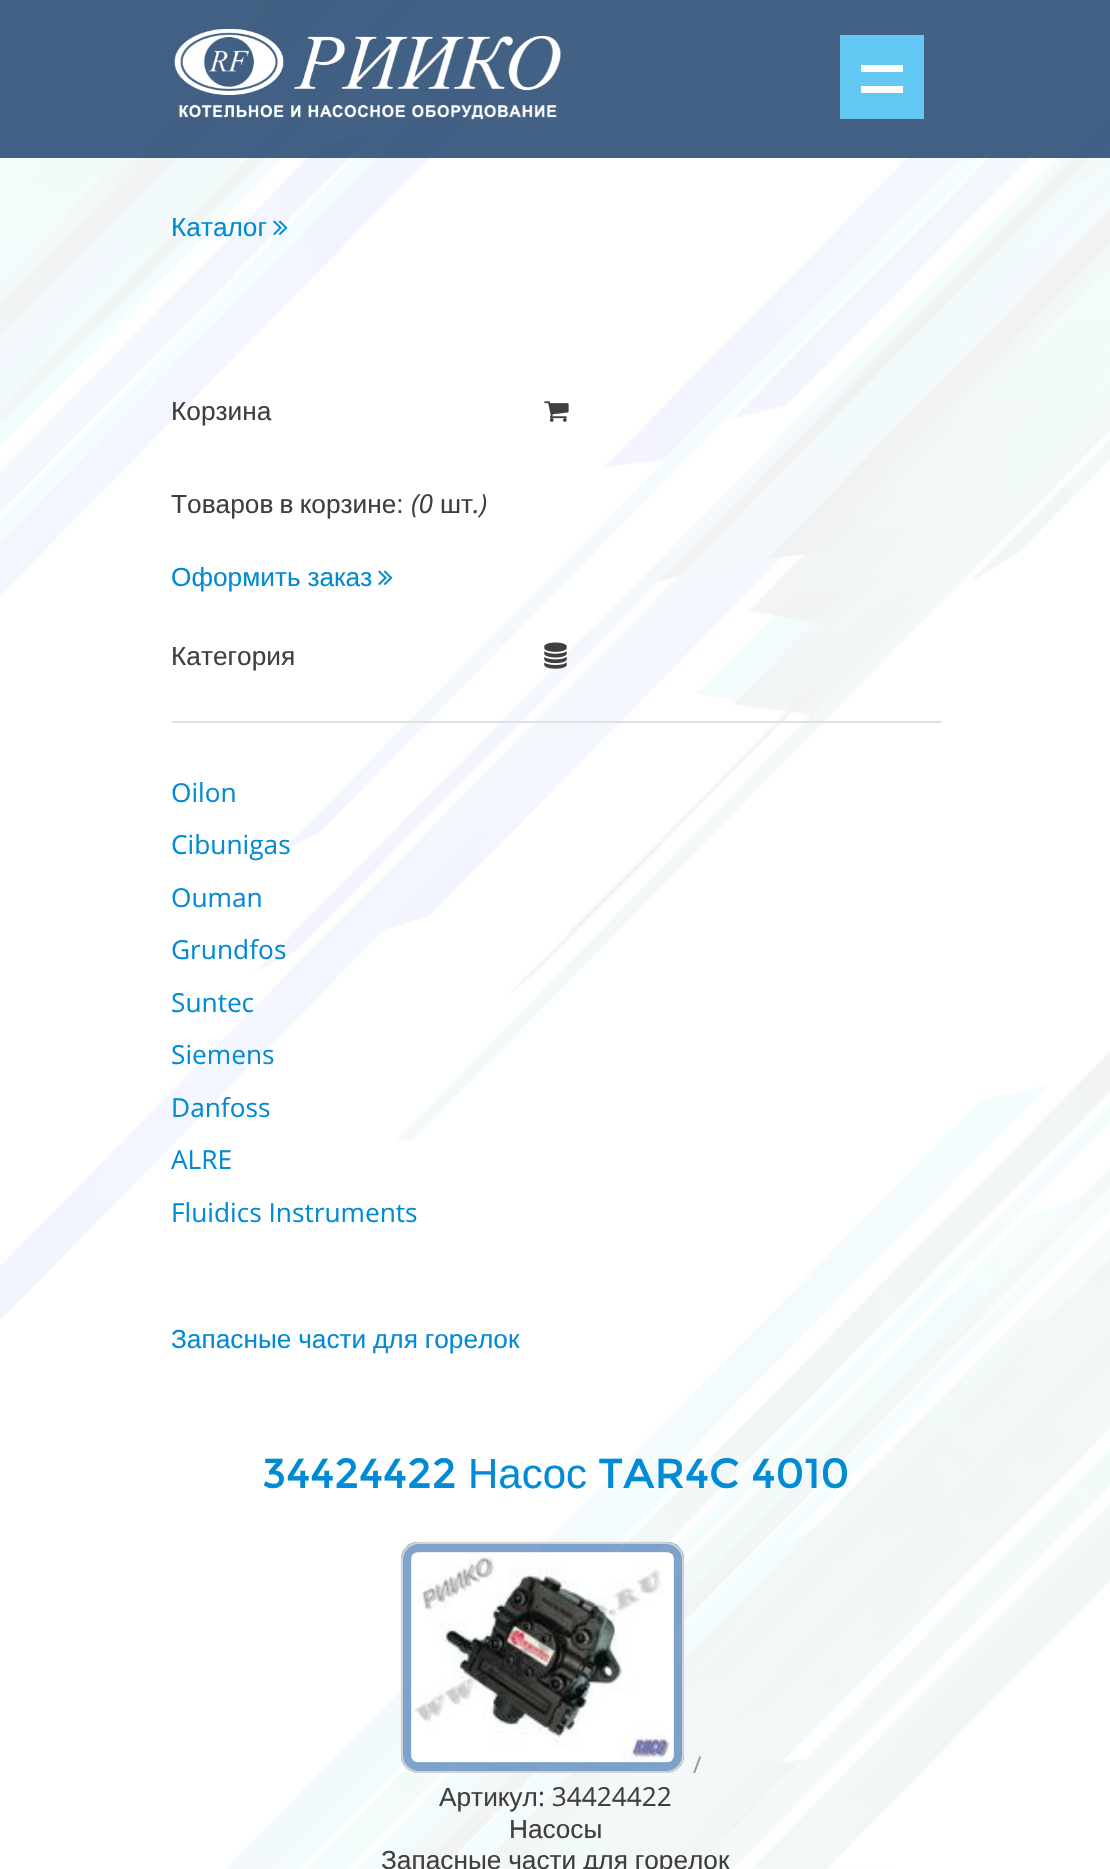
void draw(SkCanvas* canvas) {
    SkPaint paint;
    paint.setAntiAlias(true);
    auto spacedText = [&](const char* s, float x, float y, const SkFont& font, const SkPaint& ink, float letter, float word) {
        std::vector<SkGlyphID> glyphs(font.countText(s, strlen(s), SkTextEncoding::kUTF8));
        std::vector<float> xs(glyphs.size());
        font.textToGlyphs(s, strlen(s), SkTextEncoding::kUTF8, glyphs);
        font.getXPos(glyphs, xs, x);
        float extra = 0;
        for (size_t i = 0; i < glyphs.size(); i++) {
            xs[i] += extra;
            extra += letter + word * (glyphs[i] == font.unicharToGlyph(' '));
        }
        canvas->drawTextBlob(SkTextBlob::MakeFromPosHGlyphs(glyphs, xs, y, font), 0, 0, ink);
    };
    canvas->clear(0xFFFFFFFF);
    canvas->drawImageRect(SkImages::DeferredFromEncodedData(SkData::MakeFromFileName("img2.png")), SkRect::MakeXYWH(0, 0, 1110, 1869), SkSamplingOptions());
    paint.setColor(0xCC143965);
    canvas->drawRect(SkRect::MakeXYWH(0, 0, 1110, 158), paint);
    canvas->drawImageRect(SkImages::DeferredFromEncodedData(SkData::MakeFromFileName("img1.png")), SkRect::MakeXYWH(174, 29, 387, 91), SkSamplingOptions());
    paint.setColor(0xFF63C8F3);
    canvas->drawRect(SkRect::MakeXYWH(840, 35, 84, 84), paint);
    paint.setColor(0xFFFFFFFF);
    canvas->drawRect(SkRect::MakeXYWH(861, 65, 42, 7), paint);
    canvas->drawRect(SkRect::MakeXYWH(861, 86, 42, 7), paint);
    SkFont font1(fontMgr->matchFamilyStyle("Liberation Sans", SkFontStyle::Normal()), 26.25f);
    font1.setSubpixel(true);
    paint.setColor(0xFF008BD4);
    canvas->drawString("Каталог", 171, 236, font1, paint);
    canvas->drawImageRect(SkImages::DeferredFromEncodedData(SkData::MakeFromFileName("img3.png")), SkRect::MakeXYWH(273, 220, 15, 16), SkSamplingOptions());
    paint.setColor(0xFF403E3E);
    canvas->drawString("Корзина", 171, 420, font1, paint);
    canvas->drawImageRect(SkImages::DeferredFromEncodedData(SkData::MakeFromFileName("img4.png")), SkRect::MakeXYWH(544, 401, 25, 21), SkSamplingOptions());
    spacedText("Товаров в корзине:", 171, 513, font1, paint, 0, -1);
    SkFont font2(fontMgr->matchFamilyStyle("Open Sans", SkFontStyle::Italic()), 26.25f);
    font2.setSubpixel(true);
    canvas->drawString("(0", 411, 513, font2, paint);
    canvas->drawString("шт", 440, 513, font1, paint);
    canvas->drawString(".)", 473, 513, font2, paint);
    paint.setColor(0xFF008BD4);
    spacedText("Оформить заказ", 171, 586, font1, paint, 0, -0.5f);
    canvas->drawImageRect(SkImages::DeferredFromEncodedData(SkData::MakeFromFileName("img5.png")), SkRect::MakeXYWH(378, 570, 15, 16), SkSamplingOptions());
    paint.setColor(0xFF403E3E);
    canvas->drawString("Категория", 171, 665, font1, paint);
    canvas->drawImageRect(SkImages::DeferredFromEncodedData(SkData::MakeFromFileName("img6.png")), SkRect::MakeXYWH(544, 642, 23, 27), SkSamplingOptions());
    paint.setColor(0xFFE0E0E0);
    canvas->drawRect(SkRect::MakeXYWH(172, 721, 770, 2), paint);
    SkFont font3(fontMgr->matchFamilyStyle("Open Sans", SkFontStyle::Normal()), 26.25f);
    font3.setSubpixel(true);
    paint.setColor(0xFF008BD4);
    canvas->drawString("Oilon", 171, 802, font3, paint);
    canvas->drawString("Cibunigas", 171, 854, font3, paint);
    canvas->drawString("Ouman", 171, 907, font3, paint);
    canvas->drawString("Grundfos", 171, 959, font3, paint);
    canvas->drawString("Suntec", 171, 1012, font3, paint);
    canvas->drawString("Siemens", 171, 1064, font3, paint);
    canvas->drawString("Danfoss", 171, 1117, font3, paint);
    canvas->drawString("ALRE", 171, 1169, font3, paint);
    canvas->drawString("Fluidics Instruments", 171, 1222, font3, paint);
    spacedText("Запасные части для горелок", 171, 1348, font1, paint, 0, -0.5f);
    SkFont font4(fontMgr->matchFamilyStyle("Montserrat", SkFontStyle::Normal()), 42);
    font4.setSubpixel(true);
    canvas->drawString("34424422", 262, 1488, font4, paint);
    SkFont font5(fontMgr->matchFamilyStyle("Liberation Sans", SkFontStyle::Normal()), 42);
    font5.setSubpixel(true);
    canvas->drawString("Насос", 468, 1488, font5, paint);
    canvas->drawString("TAR4C 4010", 598, 1488, font4, paint);
    canvas->drawImageRect(SkImages::DeferredFromEncodedData(SkData::MakeFromFileName("img7.png")), SkRect::MakeXYWH(400, 1541, 285, 232), SkSamplingOptions());
    paint.setStyle(SkPaint::kStroke_Style);
    paint.setStrokeWidth(2);
    paint.setColor(0xFFD2D2D2);
    canvas->drawRoundRect(SkRect::MakeXYWH(402, 1543, 281, 229), 17, 17, paint);
    canvas->drawImageRect(SkImages::DeferredFromEncodedData(SkData::MakeFromFileName("img8.png")), SkRect::MakeXYWH(411, 1552, 263, 211), SkSamplingOptions());
    SkFont font6(fontMgr->matchFamilyStyle("Open Sans", SkFontStyle::Normal()), 23);
    font6.setSubpixel(true);
    paint.setStyle(SkPaint::kFill_Style);
    paint.setColor(0xFF969696);
    canvas->drawString("/", 693, 1773, font6, paint);
    paint.setColor(0xFF403E3E);
    canvas->drawString("Артикул", 439, 1806, font1, paint);
    canvas->drawString(": 34424422", 538, 1806, font3, paint);
    canvas->drawString("Насосы", 509, 1838, font1, paint);
    spacedText("Запасные части для горелок", 381, 1869, font1, paint, 0, -0.5f);
}
